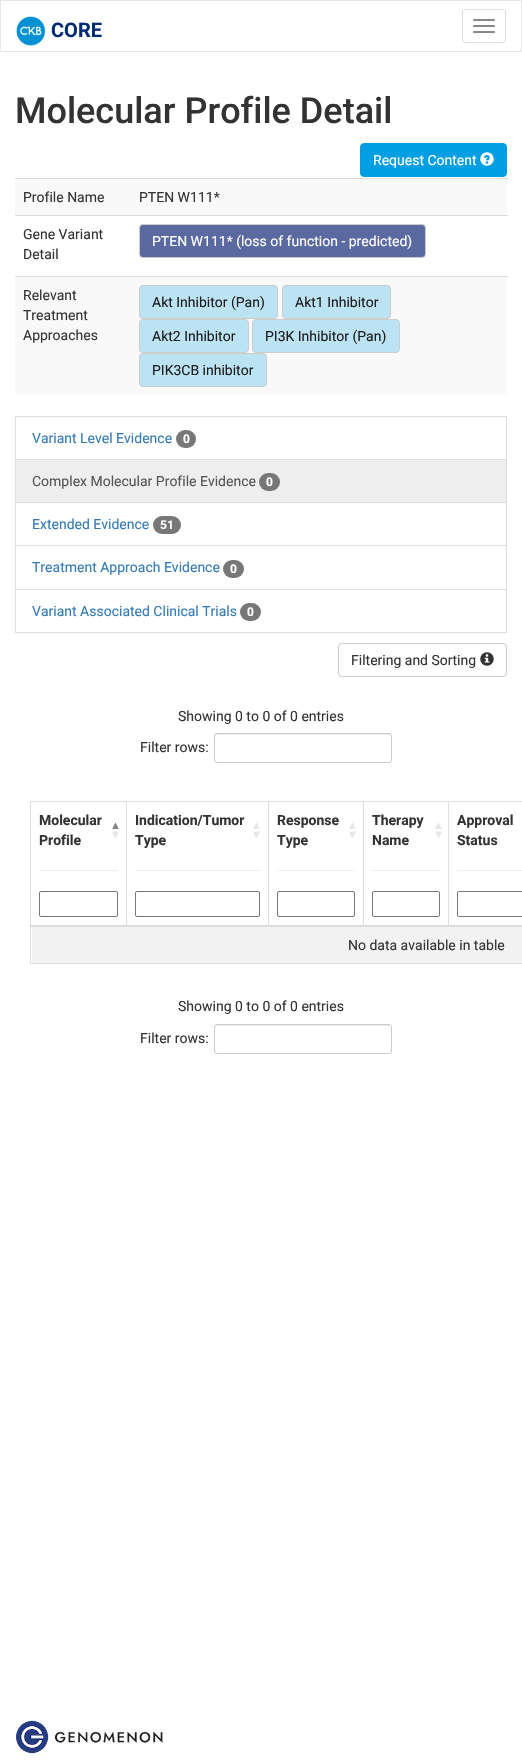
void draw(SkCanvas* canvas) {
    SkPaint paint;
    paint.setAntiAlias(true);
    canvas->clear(0xFFFFFFFF);
    paint.setStyle(SkPaint::kStroke_Style);
    paint.setStrokeWidth(1);
    paint.setColor(0xFFE7E7E7);
    canvas->drawRect(SkRect::MakeXYWH(0.5f, 0.5f, 521, 51), paint);
    canvas->drawImageRect(SkImages::DeferredFromEncodedData(SkData::MakeFromFileName("img1.png")), SkRect::MakeXYWH(16, 16, 30, 30), SkSamplingOptions());
    SkFont font1(fontMgr->matchFamilyStyle("Roboto", SkFontStyle::Bold()), 20);
    font1.setSubpixel(true);
    paint.setStyle(SkPaint::kFill_Style);
    paint.setColor(0xFF002D72);
    canvas->drawString("CORE", 51, 37, font1, paint);
    paint.setStyle(SkPaint::kStroke_Style);
    paint.setColor(0xFFDDDDDD);
    canvas->drawRoundRect(SkRect::MakeXYWH(462.5f, 9.5f, 43, 33), 3.5f, 3.5f, paint);
    paint.setStyle(SkPaint::kFill_Style);
    paint.setColor(0xFF888888);
    canvas->drawRoundRect(SkRect::MakeXYWH(473, 19, 22, 2), 1, 1, paint);
    canvas->drawRoundRect(SkRect::MakeXYWH(473, 25, 22, 2), 1, 1, paint);
    canvas->drawRoundRect(SkRect::MakeXYWH(473, 31, 22, 2), 1, 1, paint);
    SkFont font2(fontMgr->matchFamilyStyle("Roboto", SkFontStyle(500, SkFontStyle::kNormal_Width, SkFontStyle::kUpright_Slant)), 36);
    font2.setSubpixel(true);
    paint.setColor(0xFF333333);
    canvas->drawString("Molecular Profile Detail", 15, 123, font2, paint);
    paint.setColor(0xFF009FE3);
    canvas->drawRoundRect(SkRect::MakeXYWH(360.5f, 143.5f, 146, 33), 3.5f, 3.5f, paint);
    paint.setStyle(SkPaint::kStroke_Style);
    canvas->drawRoundRect(SkRect::MakeXYWH(360.5f, 143.5f, 146, 33), 3.5f, 3.5f, paint);
    SkFont font3(fontMgr->matchFamilyStyle("Roboto", SkFontStyle::Normal()), 14);
    font3.setSubpixel(true);
    paint.setStyle(SkPaint::kFill_Style);
    paint.setColor(0xFFFFFFFF);
    canvas->drawString("Request Content", 373, 165, font3, paint);
    canvas->drawImageRect(SkImages::DeferredFromEncodedData(SkData::MakeFromFileName("img2.png")), SkRect::MakeXYWH(480, 152, 14, 14), SkSamplingOptions());
    paint.setColor(0xFFF9F9F9);
    canvas->drawRect(SkRect::MakeXYWH(15, 179, 492, 36), paint);
    paint.setColor(0xFF333333);
    canvas->drawString("Profile Name", 23, 202, font3, paint);
    paint.setColor(0xFFDDDDDD);
    canvas->drawRect(SkRect::MakeXYWH(15, 178, 493, 1), paint);
    paint.setColor(0xFF333333);
    canvas->drawString("PTEN W111*", 139, 202, font3, paint);
    canvas->drawString("Gene Variant", 23, 239, font3, paint);
    canvas->drawString("Detail", 23, 259, font3, paint);
    paint.setColor(0xFFDDDDDD);
    canvas->drawRect(SkRect::MakeXYWH(15, 215, 493, 1), paint);
    paint.setColor(0xFF5A69A0);
    canvas->drawRoundRect(SkRect::MakeXYWH(139.5f, 224.5f, 286, 33), 3.5f, 3.5f, paint);
    paint.setStyle(SkPaint::kStroke_Style);
    paint.setColor(0xFFCCCCCC);
    canvas->drawRoundRect(SkRect::MakeXYWH(139.5f, 224.5f, 286, 33), 3.5f, 3.5f, paint);
    paint.setStyle(SkPaint::kFill_Style);
    paint.setColor(0xFFFFFFFF);
    canvas->drawString("PTEN W111* (loss of function - predicted)", 152, 246, font3, paint);
    paint.setColor(0xFFF9F9F9);
    canvas->drawRect(SkRect::MakeXYWH(15, 277, 492, 118), paint);
    paint.setColor(0xFF333333);
    canvas->drawString("Relevant", 23, 300, font3, paint);
    canvas->drawString("Treatment", 23, 320, font3, paint);
    canvas->drawString("Approaches", 23, 340, font3, paint);
    paint.setColor(0xFFDDDDDD);
    canvas->drawRect(SkRect::MakeXYWH(15, 276, 493, 1), paint);
    paint.setColor(0xFFBBE3F4);
    canvas->drawRoundRect(SkRect::MakeXYWH(139.5f, 285.5f, 138, 33), 3.5f, 3.5f, paint);
    paint.setStyle(SkPaint::kStroke_Style);
    paint.setColor(0xFFCCCCCC);
    canvas->drawRoundRect(SkRect::MakeXYWH(139.5f, 285.5f, 138, 33), 3.5f, 3.5f, paint);
    paint.setStyle(SkPaint::kFill_Style);
    paint.setColor(0xFF1D1D1B);
    canvas->drawString("Akt Inhibitor (Pan)", 152, 307, font3, paint);
    paint.setColor(0xFFBBE3F4);
    canvas->drawRoundRect(SkRect::MakeXYWH(282.5f, 285.5f, 108, 33), 3.5f, 3.5f, paint);
    paint.setStyle(SkPaint::kStroke_Style);
    paint.setColor(0xFFCCCCCC);
    canvas->drawRoundRect(SkRect::MakeXYWH(282.5f, 285.5f, 108, 33), 3.5f, 3.5f, paint);
    paint.setStyle(SkPaint::kFill_Style);
    paint.setColor(0xFF1D1D1B);
    canvas->drawString("Akt1 Inhibitor", 295, 307, font3, paint);
    paint.setColor(0xFFBBE3F4);
    canvas->drawRoundRect(SkRect::MakeXYWH(139.5f, 319.5f, 109, 33), 3.5f, 3.5f, paint);
    paint.setStyle(SkPaint::kStroke_Style);
    paint.setColor(0xFFCCCCCC);
    canvas->drawRoundRect(SkRect::MakeXYWH(139.5f, 319.5f, 109, 33), 3.5f, 3.5f, paint);
    paint.setStyle(SkPaint::kFill_Style);
    paint.setColor(0xFF1D1D1B);
    canvas->drawString("Akt2 Inhibitor", 152, 341, font3, paint);
    paint.setColor(0xFFBBE3F4);
    canvas->drawRoundRect(SkRect::MakeXYWH(252.5f, 319.5f, 147, 33), 3.5f, 3.5f, paint);
    paint.setStyle(SkPaint::kStroke_Style);
    paint.setColor(0xFFCCCCCC);
    canvas->drawRoundRect(SkRect::MakeXYWH(252.5f, 319.5f, 147, 33), 3.5f, 3.5f, paint);
    paint.setStyle(SkPaint::kFill_Style);
    paint.setColor(0xFF1D1D1B);
    canvas->drawString("PI3K Inhibitor (Pan)", 265, 341, font3, paint);
    paint.setColor(0xFFBBE3F4);
    canvas->drawRoundRect(SkRect::MakeXYWH(139.5f, 353.5f, 127, 33), 3.5f, 3.5f, paint);
    paint.setStyle(SkPaint::kStroke_Style);
    paint.setColor(0xFFCCCCCC);
    canvas->drawRoundRect(SkRect::MakeXYWH(139.5f, 353.5f, 127, 33), 3.5f, 3.5f, paint);
    paint.setStyle(SkPaint::kFill_Style);
    paint.setColor(0xFF1D1D1B);
    canvas->drawString("PIK3CB inhibitor", 152, 375, font3, paint);
    paint.setStyle(SkPaint::kStroke_Style);
    paint.setColor(0xFFDDDDDD);
    canvas->drawRect(SkRect::MakeXYWH(15.5f, 416.5f, 491, 43), paint);
    paint.setStyle(SkPaint::kFill_Style);
    paint.setColor(0xFF337AB7);
    canvas->drawString("Variant Level Evidence", 32, 443, font3, paint);
    paint.setColor(0xFF777777);
    canvas->drawRoundRect(SkRect::MakeXYWH(176, 430, 20, 18), 9, 9, paint);
    SkFont font4(fontMgr->matchFamilyStyle("Roboto", SkFontStyle::Bold()), 12);
    font4.setSubpixel(true);
    paint.setColor(0xFFFFFFFF);
    canvas->drawString("0", 183, 443, font4, paint);
    paint.setColor(0xFFEEEEEE);
    canvas->drawRect(SkRect::MakeXYWH(15.5f, 459.5f, 491, 43), paint);
    paint.setStyle(SkPaint::kStroke_Style);
    paint.setColor(0xFFDDDDDD);
    canvas->drawRect(SkRect::MakeXYWH(15.5f, 459.5f, 491, 43), paint);
    paint.setStyle(SkPaint::kFill_Style);
    paint.setColor(0xFF555555);
    canvas->drawString("Complex Molecular Profile Evidence", 32, 486, font3, paint);
    paint.setColor(0xFF777777);
    canvas->drawRoundRect(SkRect::MakeXYWH(259, 473, 21, 18), 9, 9, paint);
    paint.setColor(0xFFFFFFFF);
    canvas->drawString("0", 266, 486, font4, paint);
    paint.setStyle(SkPaint::kStroke_Style);
    paint.setColor(0xFFDDDDDD);
    canvas->drawRect(SkRect::MakeXYWH(15.5f, 502.5f, 491, 43), paint);
    paint.setStyle(SkPaint::kFill_Style);
    paint.setColor(0xFF337AB7);
    canvas->drawString("Extended Evidence", 32, 529, font3, paint);
    paint.setColor(0xFF777777);
    canvas->drawRoundRect(SkRect::MakeXYWH(153, 516, 28, 18), 9, 9, paint);
    paint.setColor(0xFFFFFFFF);
    canvas->drawString("51", 160, 529, font4, paint);
    paint.setStyle(SkPaint::kStroke_Style);
    paint.setColor(0xFFDDDDDD);
    canvas->drawRect(SkRect::MakeXYWH(15.5f, 545.5f, 491, 44), paint);
    paint.setStyle(SkPaint::kFill_Style);
    paint.setColor(0xFF337AB7);
    canvas->drawString("Treatment Approach Evidence", 32, 572, font3, paint);
    paint.setColor(0xFF777777);
    canvas->drawRoundRect(SkRect::MakeXYWH(223, 560, 21, 18), 9, 9, paint);
    paint.setColor(0xFFFFFFFF);
    canvas->drawString("0", 230, 573, font4, paint);
    paint.setStyle(SkPaint::kStroke_Style);
    paint.setColor(0xFFDDDDDD);
    canvas->drawRect(SkRect::MakeXYWH(15.5f, 589.5f, 491, 43), paint);
    paint.setStyle(SkPaint::kFill_Style);
    paint.setColor(0xFF337AB7);
    canvas->drawString("Variant Associated Clinical Trials", 32, 616, font3, paint);
    paint.setColor(0xFF777777);
    canvas->drawRoundRect(SkRect::MakeXYWH(240, 603, 21, 18), 9, 9, paint);
    paint.setColor(0xFFFFFFFF);
    canvas->drawString("0", 247, 616, font4, paint);
    paint.setStyle(SkPaint::kStroke_Style);
    paint.setColor(0xFFCCCCCC);
    canvas->drawRoundRect(SkRect::MakeXYWH(338.5f, 643.5f, 168, 33), 3.5f, 3.5f, paint);
    paint.setStyle(SkPaint::kFill_Style);
    paint.setColor(0xFF333333);
    canvas->drawString("Filtering and Sorting", 351, 665, font3, paint);
    canvas->drawImageRect(SkImages::DeferredFromEncodedData(SkData::MakeFromFileName("img3.png")), SkRect::MakeXYWH(480, 652, 14, 14), SkSamplingOptions());
    canvas->drawString("Showing 0 to 0 of 0 entries", 178, 721, font3, paint);
    canvas->drawString("Filter rows:", 140, 752, font3, paint);
    paint.setColor(0xFFECECEC);
    canvas->drawPath(SkPathBuilder().moveTo(217, 735).lineTo(389, 735).cubicTo(390, 735, 391, 736, 391, 737).cubicTo(391, 736, 391, 734, 389, 734).lineTo(216, 734).cubicTo(215, 735, 215, 736, 215, 737).cubicTo(215, 736, 216, 735, 217, 735).close().detach(), paint);
    paint.setStyle(SkPaint::kStroke_Style);
    paint.setColor(0xFFCCCCCC);
    canvas->drawRoundRect(SkRect::MakeXYWH(214.5f, 733.5f, 177, 29), 2.5f, 2.5f, paint);
    paint.setStyle(SkPaint::kFill_Style);
    paint.setColor(0xFFDDDDDD);
    canvas->drawRect(SkRect::MakeXYWH(30, 801, 492, 1), paint);
    canvas->drawRect(SkRect::MakeXYWH(30, 963, 492, 1), paint);
    canvas->drawRect(SkRect::MakeXYWH(30, 801, 1, 163), paint);
    SkFont font5(fontMgr->matchFamilyStyle("Roboto", SkFontStyle::Bold()), 14);
    font5.setSubpixel(true);
    paint.setColor(0xFF333333);
    canvas->drawString("Molecular", 39, 825, font5, paint);
    canvas->drawString("Profile", 39, 845, font5, paint);
    SkFont font6(fontMgr->matchFamilyStyle("Liberation Sans", SkFontStyle::Bold()), 11);
    font6.setSubpixel(true);
    paint.setColor(0xFF858585);
    canvas->drawString("▲", 110, 829, font6, paint);
    paint.setColor(0xFFE6E6E6);
    canvas->drawString("▼", 110, 838, font6, paint);
    paint.setColor(0xFFEEEEEE);
    canvas->drawRect(SkRect::MakeXYWH(39, 870, 79, 1), paint);
    paint.setStyle(SkPaint::kStroke_Style);
    paint.setColor(0xFF767676);
    canvas->drawRoundRect(SkRect::MakeXYWH(39.5f, 891.5f, 78, 25), 1.5f, 1.5f, paint);
    paint.setStyle(SkPaint::kFill_Style);
    paint.setColor(0xFFDDDDDD);
    canvas->drawRect(SkRect::MakeXYWH(126, 801, 1, 126), paint);
    paint.setColor(0xFF333333);
    canvas->drawString("Indication/Tumor", 135, 825, font5, paint);
    canvas->drawString("Type", 135, 845, font5, paint);
    paint.setColor(0xFFE6E6E6);
    canvas->drawString("▲", 251, 829, font6, paint);
    canvas->drawString("▼", 251, 838, font6, paint);
    paint.setColor(0xFFEEEEEE);
    canvas->drawRect(SkRect::MakeXYWH(135, 870, 125, 1), paint);
    paint.setStyle(SkPaint::kStroke_Style);
    paint.setColor(0xFF767676);
    canvas->drawRoundRect(SkRect::MakeXYWH(135.5f, 891.5f, 124, 25), 1.5f, 1.5f, paint);
    paint.setStyle(SkPaint::kFill_Style);
    paint.setColor(0xFFDDDDDD);
    canvas->drawRect(SkRect::MakeXYWH(268, 801, 1, 126), paint);
    paint.setColor(0xFF333333);
    canvas->drawString("Response", 277, 825, font5, paint);
    canvas->drawString("Type", 277, 845, font5, paint);
    paint.setColor(0xFFE6E6E6);
    canvas->drawString("▲", 347, 829, font6, paint);
    canvas->drawString("▼", 347, 838, font6, paint);
    paint.setColor(0xFFEEEEEE);
    canvas->drawRect(SkRect::MakeXYWH(277, 870, 78, 1), paint);
    paint.setStyle(SkPaint::kStroke_Style);
    paint.setColor(0xFF767676);
    canvas->drawRoundRect(SkRect::MakeXYWH(277.5f, 891.5f, 77, 25), 1.5f, 1.5f, paint);
    paint.setStyle(SkPaint::kFill_Style);
    paint.setColor(0xFFDDDDDD);
    canvas->drawRect(SkRect::MakeXYWH(363, 801, 1, 126), paint);
    paint.setColor(0xFF333333);
    canvas->drawString("Therapy", 372, 825, font5, paint);
    canvas->drawString("Name", 372, 845, font5, paint);
    paint.setColor(0xFFE6E6E6);
    canvas->drawString("▲", 433, 829, font6, paint);
    canvas->drawString("▼", 433, 838, font6, paint);
    paint.setColor(0xFFEEEEEE);
    canvas->drawRect(SkRect::MakeXYWH(372, 870, 68, 1), paint);
    paint.setStyle(SkPaint::kStroke_Style);
    paint.setColor(0xFF767676);
    canvas->drawRoundRect(SkRect::MakeXYWH(372.5f, 891.5f, 67, 25), 1.5f, 1.5f, paint);
    paint.setStyle(SkPaint::kFill_Style);
    paint.setColor(0xFFDDDDDD);
    canvas->drawRect(SkRect::MakeXYWH(448, 801, 1, 126), paint);
    canvas->drawRect(SkRect::MakeXYWH(30, 925, 492, 2), paint);
    paint.setColor(0xFF333333);
    canvas->drawString("Approval", 457, 825, font5, paint);
    canvas->drawString("Status", 457, 845, font5, paint);
    paint.setColor(0xFFEEEEEE);
    canvas->drawRect(SkRect::MakeXYWH(457, 870, 65, 1), paint);
    paint.setStyle(SkPaint::kStroke_Style);
    paint.setColor(0xFF767676);
    canvas->drawRoundRect(SkRect::MakeXYWH(457.5f, 891.5f, 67, 25), 1.5f, 1.5f, paint);
    paint.setStyle(SkPaint::kFill_Style);
    paint.setColor(0xFFF2F2F2);
    canvas->drawRect(SkRect::MakeXYWH(32, 927, 490, 36), paint);
    paint.setColor(0xFF333333);
    canvas->drawString("No data available in table", 348, 950, font3, paint);
    canvas->drawString("Showing 0 to 0 of 0 entries", 178, 1011, font3, paint);
    canvas->drawString("Filter rows:", 140, 1043, font3, paint);
    paint.setColor(0xFFECECEC);
    canvas->drawPath(SkPathBuilder().moveTo(217, 1026).lineTo(389, 1026).cubicTo(390, 1026, 391, 1027, 391, 1028).cubicTo(391, 1027, 391, 1025, 389, 1025).lineTo(216, 1025).cubicTo(215, 1026, 215, 1027, 215, 1028).cubicTo(215, 1027, 216, 1026, 217, 1026).close().detach(), paint);
    paint.setStyle(SkPaint::kStroke_Style);
    paint.setColor(0xFFCCCCCC);
    canvas->drawRoundRect(SkRect::MakeXYWH(214.5f, 1024.5f, 177, 29), 2.5f, 2.5f, paint);
    canvas->drawImageRect(SkImages::DeferredFromEncodedData(SkData::MakeFromFileName("img4.png")), SkRect::MakeXYWH(15, 1720, 148, 34), SkSamplingOptions());
}
